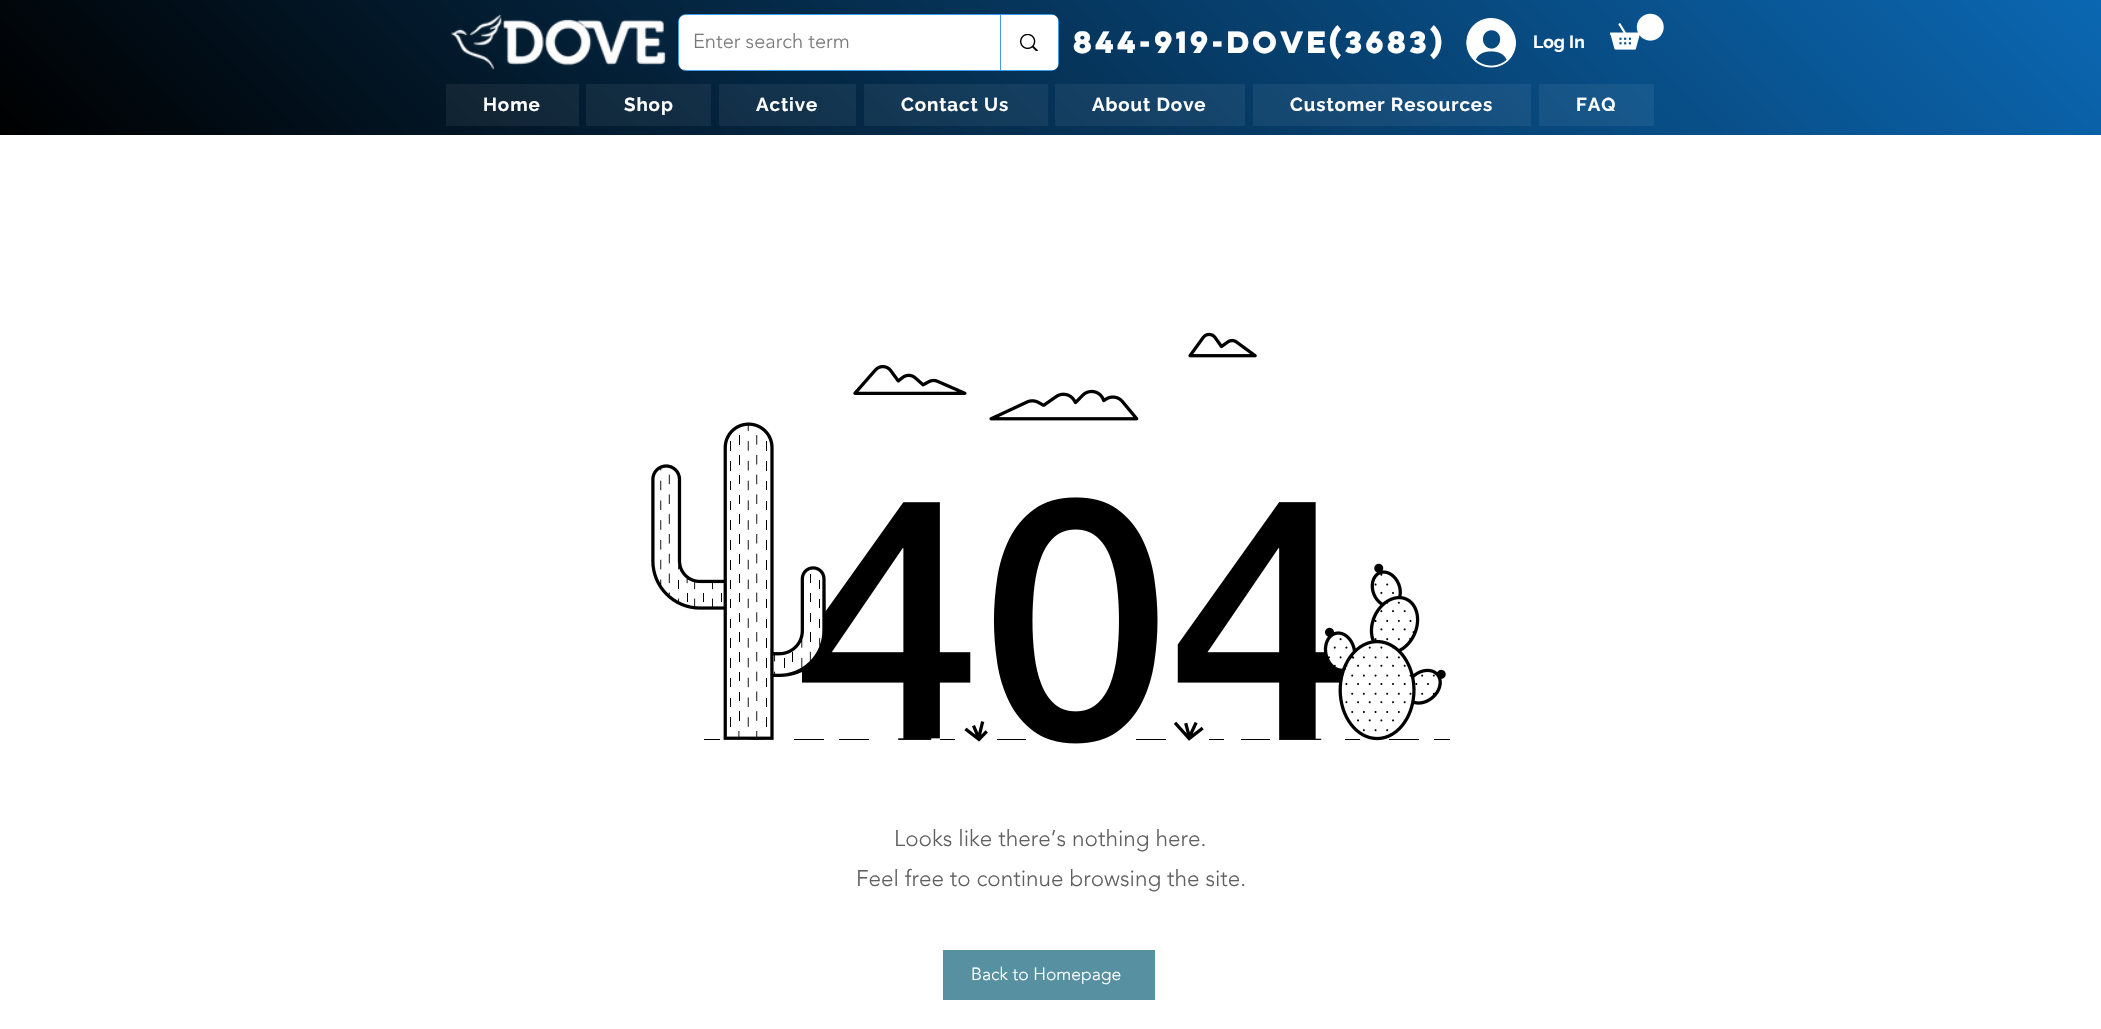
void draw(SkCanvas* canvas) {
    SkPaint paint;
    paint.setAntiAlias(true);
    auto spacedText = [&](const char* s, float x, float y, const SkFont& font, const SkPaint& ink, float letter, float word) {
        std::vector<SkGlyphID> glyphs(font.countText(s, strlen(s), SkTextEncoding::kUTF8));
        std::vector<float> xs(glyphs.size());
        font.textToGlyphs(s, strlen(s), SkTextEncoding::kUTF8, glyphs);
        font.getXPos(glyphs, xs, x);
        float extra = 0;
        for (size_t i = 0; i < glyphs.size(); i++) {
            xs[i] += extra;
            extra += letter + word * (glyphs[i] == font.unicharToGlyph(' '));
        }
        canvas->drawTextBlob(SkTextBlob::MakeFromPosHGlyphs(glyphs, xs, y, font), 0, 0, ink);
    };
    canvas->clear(0xFFFFFFFF);
    {
        const SkColor colors[] = {0xFF000000, 0xFF0B67B2};
        const float stops[] = {0, 1};
        const SkPoint ends[] = {{492, 627}, {1610, -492}};
        paint.setShader(SkGradientShader::MakeLinear(ends, colors, stops, 2, SkTileMode::kClamp));
        paint.setAlpha(255);
    }
    canvas->drawRect(SkRect::MakeXYWH(0, 0, 2101, 135), paint);
    canvas->drawImageRect(SkImages::DeferredFromEncodedData(SkData::MakeFromFileName("img1.png")), SkRect::MakeXYWH(451, 14, 215, 56), SkSamplingOptions());
    paint.setStyle(SkPaint::kStroke_Style);
    paint.setStrokeWidth(1);
    paint.setShader(nullptr);
    paint.setColor(0xFF3D9BE9);
    canvas->drawRoundRect(SkRect::MakeXYWH(678.5f, 14.5f, 380, 56), 7.5f, 7.5f, paint);
    paint.setStyle(SkPaint::kFill_Style);
    paint.setColor(0xFFFFFFFF);
    canvas->drawRoundRect(SkRect::MakeXYWH(679, 15, 379, 55), 6, 6, paint);
    SkFont font1(fontMgr->matchFamilyStyle("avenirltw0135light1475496", SkFontStyle(300, SkFontStyle::kNormal_Width, SkFontStyle::kUpright_Slant)), 20);
    font1.setSubpixel(true);
    paint.setColor(0xFF787878);
    canvas->drawString("Enter search term", 693, 48, font1, paint);
    paint.setColor(0xFFFFFFFF);
    canvas->drawPath(SkPathBuilder().moveTo(1000, 15).lineTo(1052, 15).cubicTo(1055.5f, 15, 1058, 17.5f, 1058, 21).lineTo(1058, 64).cubicTo(1058, 67.5f, 1055.5f, 70, 1052, 70).lineTo(1000, 70).close().detach(), paint);
    paint.setColor(0xFF3D9BE9);
    canvas->drawRect(SkRect::MakeXYWH(1000, 15, 1, 55), paint);
    canvas->drawImageRect(SkImages::DeferredFromEncodedData(SkData::MakeFromFileName("img2.png")), SkRect::MakeXYWH(1020, 34, 18, 17), SkSamplingOptions());
    SkFont font2(fontMgr->matchFamilyStyle("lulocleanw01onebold", SkFontStyle::Bold()), 27.5f);
    font2.setSubpixel(true);
    paint.setColor(0xFFFFFFFF);
    spacedText("844-919-DOVE(3683)", 1073, 53, font2, paint, -2.75f, 0);
    canvas->drawImageRect(SkImages::DeferredFromEncodedData(SkData::MakeFromFileName("img3.png")), SkRect::MakeXYWH(1466, 18, 50, 50), SkSamplingOptions());
    SkFont font3(fontMgr->matchFamilyStyle("Raleway", SkFontStyle::Bold()), 17.5f);
    font3.setSubpixel(true);
    canvas->drawString("Log In", 1533, 48, font3, paint);
    canvas->drawImageRect(SkImages::DeferredFromEncodedData(SkData::MakeFromFileName("img4.png")), SkRect::MakeXYWH(1610, 13, 54, 37), SkSamplingOptions());
    paint.setColor(0x0FFFFFFF);
    canvas->drawRect(SkRect::MakeXYWH(446, 84, 133, 42), paint);
    SkFont font4(fontMgr->matchFamilyStyle("Raleway", SkFontStyle::Bold()), 18.75f);
    font4.setSubpixel(true);
    paint.setColor(0xFFFFFFFF);
    spacedText("Home", 483, 111, font4, paint, 0.9f, 0);
    paint.setColor(0x0FFFFFFF);
    canvas->drawRect(SkRect::MakeXYWH(586, 84, 125, 42), paint);
    paint.setColor(0xFFFFFFFF);
    spacedText("Shop", 624, 111, font4, paint, 0.9f, 0);
    paint.setColor(0x0FFFFFFF);
    canvas->drawRect(SkRect::MakeXYWH(719, 84, 137, 42), paint);
    paint.setColor(0xFFFFFFFF);
    spacedText("Active", 756, 111, font4, paint, 0.9f, 0);
    paint.setColor(0x0FFFFFFF);
    canvas->drawRect(SkRect::MakeXYWH(864, 84, 184, 42), paint);
    paint.setColor(0xFFFFFFFF);
    spacedText("Contact Us", 901, 111, font4, paint, 0.9f, 0);
    paint.setColor(0x0FFFFFFF);
    canvas->drawRect(SkRect::MakeXYWH(1055, 84, 190, 42), paint);
    paint.setColor(0xFFFFFFFF);
    spacedText("About Dove", 1092, 111, font4, paint, 0.9f, 0);
    paint.setColor(0x0FFFFFFF);
    canvas->drawRect(SkRect::MakeXYWH(1253, 84, 278, 42), paint);
    paint.setColor(0xFFFFFFFF);
    spacedText("Customer Resources", 1290, 111, font4, paint, 0.9f, 0);
    paint.setColor(0x0FFFFFFF);
    canvas->drawRect(SkRect::MakeXYWH(1539, 84, 115, 42), paint);
    paint.setColor(0xFFFFFFFF);
    spacedText("FAQ", 1576, 111, font4, paint, 0.9f, 0);
    canvas->drawImageRect(SkImages::DeferredFromEncodedData(SkData::MakeFromFileName("img5.png")), SkRect::MakeXYWH(651, 332, 799, 412), SkSamplingOptions());
    SkFont font5(fontMgr->matchFamilyStyle("avenirltw0135light1475496", SkFontStyle(300, SkFontStyle::kNormal_Width, SkFontStyle::kUpright_Slant)), 22.5f);
    font5.setSubpixel(true);
    paint.setColor(0xFF616060);
    canvas->drawString("Looks like there’s nothing here.", 894, 846, font5, paint);
    canvas->drawString("Feel free to continue browsing the site.", 856, 886, font5, paint);
    paint.setColor(0xFF5790A1);
    canvas->drawRect(SkRect::MakeXYWH(943, 950, 212, 50), paint);
    SkFont font6(fontMgr->matchFamilyStyle("avenirltw0135light1475496", SkFontStyle(300, SkFontStyle::kNormal_Width, SkFontStyle::kUpright_Slant)), 17.5f);
    font6.setSubpixel(true);
    paint.setColor(0xFFFFFFFF);
    canvas->drawString("Back to Homepage", 971, 980, font6, paint);
}
